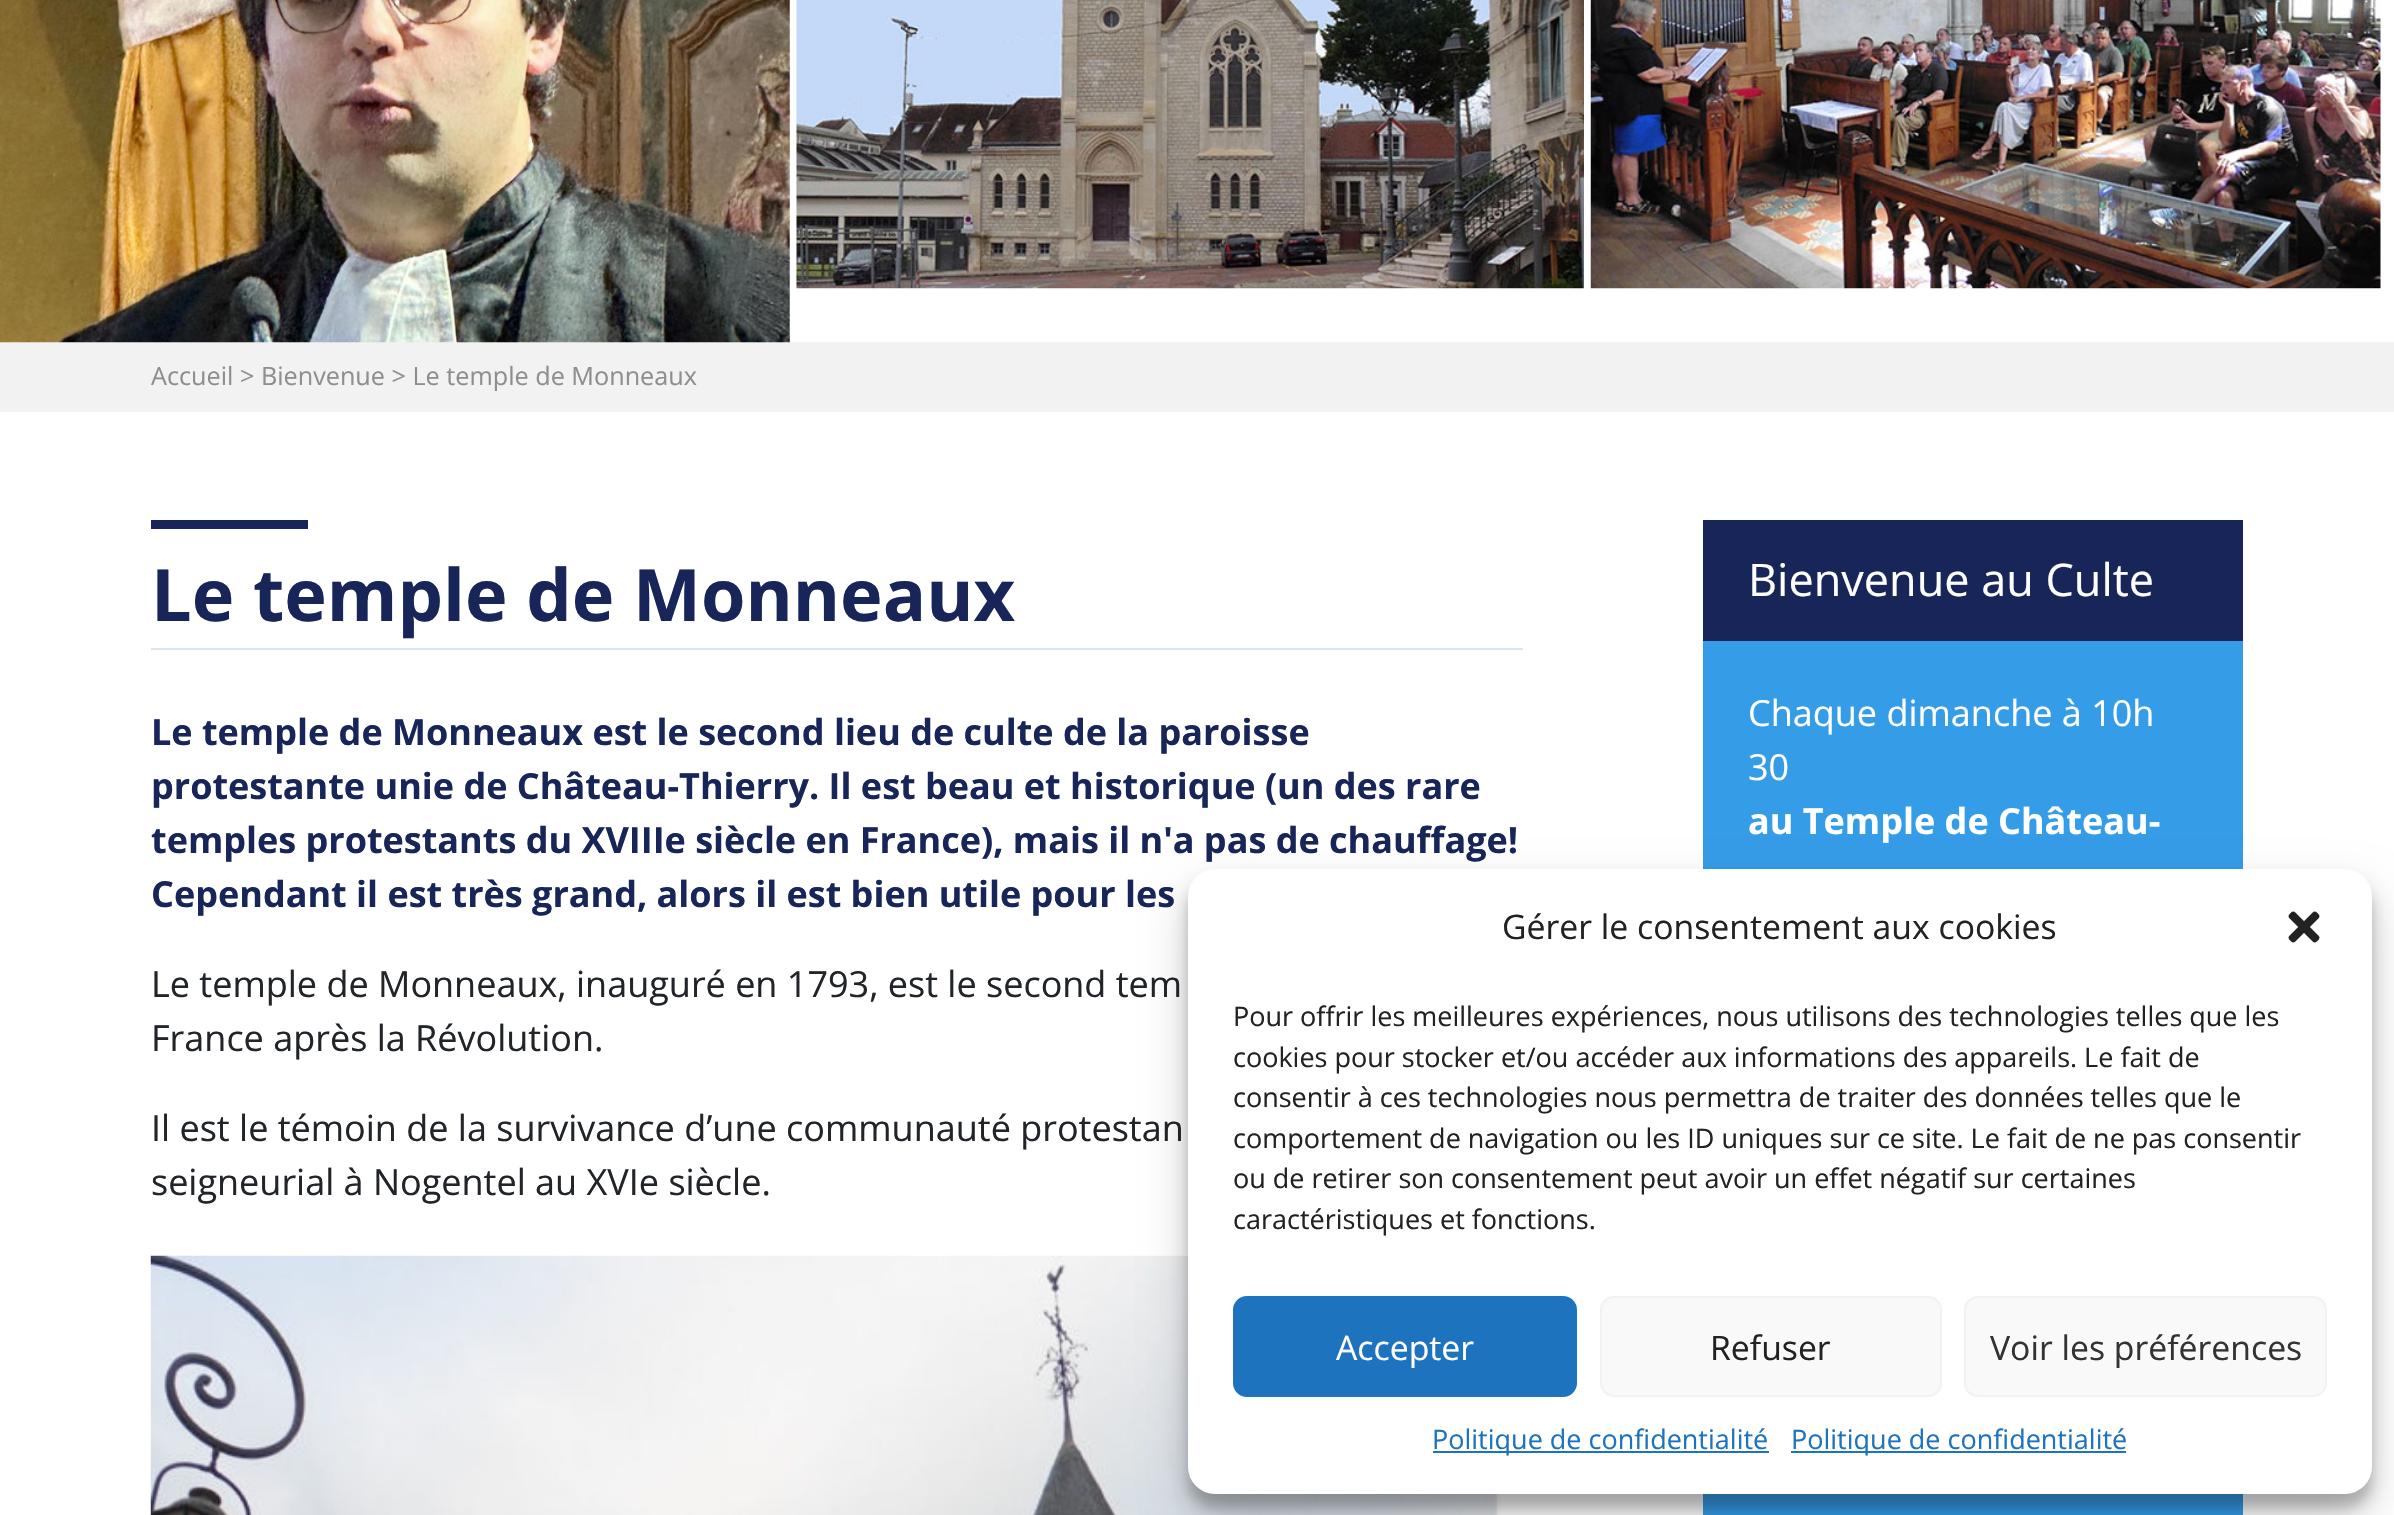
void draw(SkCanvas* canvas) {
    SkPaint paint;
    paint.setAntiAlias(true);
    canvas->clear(0xFFFFFFFF);
    paint.setColor(0xFFF2F2F2);
    canvas->drawRect(SkRect::MakeXYWH(0, 342, 2394, 70), paint);
    canvas->drawImageRect(SkImages::DeferredFromEncodedData(SkData::MakeFromFileName("img1.png")), SkRect::MakeXYWH(0, 0, 790, 343), SkSamplingOptions());
    canvas->drawImageRect(SkImages::DeferredFromEncodedData(SkData::MakeFromFileName("img2.png")), SkRect::MakeXYWH(796, 0, 788, 289), SkSamplingOptions());
    canvas->drawImageRect(SkImages::DeferredFromEncodedData(SkData::MakeFromFileName("img3.png")), SkRect::MakeXYWH(1590, 0, 791, 289), SkSamplingOptions());
    SkFont font1(fontMgr->matchFamilyStyle("Open Sans", SkFontStyle::Normal()), 25.2f);
    font1.setSubpixel(true);
    paint.setColor(0xFF8E8E8E);
    canvas->drawString("Accueil > Bienvenue > Le temple de Monneaux", 151, 385, font1, paint);
    paint.setColor(0xFFDCE5F1);
    canvas->drawRect(SkRect::MakeXYWH(151, 648, 1372, 2), paint);
    paint.setColor(0xFF172559);
    canvas->drawRect(SkRect::MakeXYWH(151, 520, 157, 9), paint);
    SkFont font2(fontMgr->matchFamilyStyle("Open Sans", SkFontStyle::Bold()), 72);
    font2.setSubpixel(true);
    canvas->drawString("Le temple de Monneaux", 151, 621, font2, paint);
    SkFont font3(fontMgr->matchFamilyStyle("Open Sans", SkFontStyle::Bold()), 36);
    font3.setSubpixel(true);
    canvas->drawString("Le temple de Monneaux est le second lieu de culte de la paroisse", 151, 745, font3, paint);
    canvas->drawString("protestante unie de Château-Thierry. Il est beau et historique (un des rare", 151, 799, font3, paint);
    canvas->drawString("temples protestants du XVIIIe siècle en France), mais il n'a pas de chauffage!", 151, 853, font3, paint);
    canvas->drawString("Cependant il est très grand, alors il est bien utile pour les", 151, 907, font3, paint);
    SkFont font4(fontMgr->matchFamilyStyle("Open Sans", SkFontStyle::Normal()), 36);
    font4.setSubpixel(true);
    paint.setColor(0xFF212529);
    canvas->drawString("Le temple de Monneaux, inauguré en 1793, est le second tem", 151, 997, font4, paint);
    canvas->drawString("France après la Révolution.", 151, 1051, font4, paint);
    canvas->drawString("Il est le témoin de la survivance d’une communauté protestan", 151, 1141, font4, paint);
    canvas->drawString("seigneurial à Nogentel au XVIe siècle.", 151, 1195, font4, paint);
    canvas->drawImageRect(SkImages::DeferredFromEncodedData(SkData::MakeFromFileName("img4.png")), SkRect::MakeXYWH(150, 1255, 1351, 260), SkSamplingOptions());
    paint.setColor(0xFF359CE8);
    canvas->drawRect(SkRect::MakeXYWH(1703, 641, 540, 874), paint);
    paint.setColor(0xFF172559);
    canvas->drawRect(SkRect::MakeXYWH(1703, 520, 540, 121), paint);
    SkFont font5(fontMgr->matchFamilyStyle("Open Sans", SkFontStyle::Normal()), 45);
    font5.setSubpixel(true);
    paint.setColor(0xFFFFFFFF);
    canvas->drawString("Bienvenue au Culte", 1748, 596, font5, paint);
    canvas->drawString("Chaque dimanche à 10h", 1748, 726, font4, paint);
    canvas->drawString("30", 1748, 780, font4, paint);
    canvas->drawString("au Temple de Château-", 1748, 834, font3, paint);
    paint.setColor(0x3B000000);
    paint.setMaskFilter(SkMaskFilter::MakeBlur(kNormal_SkBlurStyle, 7));
    canvas->drawRoundRect(SkRect::MakeXYWH(1188, 882, 1184, 626), 27, 27, paint);
    paint.setMaskFilter(nullptr);
    paint.setColor(0x30000000);
    paint.setMaskFilter(SkMaskFilter::MakeBlur(kNormal_SkBlurStyle, 22.5f));
    canvas->drawRoundRect(SkRect::MakeXYWH(1188, 891, 1184, 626), 27, 27, paint);
    paint.setMaskFilter(nullptr);
    paint.setColor(0xFFFFFFFF);
    canvas->drawRoundRect(SkRect::MakeXYWH(1188, 869, 1184, 625), 27, 27, paint);
    SkFont font6(fontMgr->matchFamilyStyle("Open Sans", SkFontStyle::Normal()), 33.75f);
    font6.setSubpixel(true);
    paint.setColor(0xFF222222);
    canvas->drawString("Gérer le consentement aux cookies", 1502, 939, font6, paint);
    canvas->drawImageRect(SkImages::DeferredFromEncodedData(SkData::MakeFromFileName("img5.png")), SkRect::MakeXYWH(2288, 911, 32, 32), SkSamplingOptions());
    SkFont font7(fontMgr->matchFamilyStyle("Open Sans", SkFontStyle::Normal()), 27);
    font7.setSubpixel(true);
    canvas->drawString("Pour offrir les meilleures expériences, nous utilisons des technologies telles que les", 1233, 1026, font7, paint);
    canvas->drawString("cookies pour stocker et/ou accéder aux informations des appareils. Le fait de", 1233, 1067, font7, paint);
    canvas->drawString("consentir à ces technologies nous permettra de traiter des données telles que le", 1233, 1107, font7, paint);
    canvas->drawString("comportement de navigation ou les ID uniques sur ce site. Le fait de ne pas consentir", 1233, 1148, font7, paint);
    canvas->drawString("ou de retirer son consentement peut avoir un effet négatif sur certaines", 1233, 1188, font7, paint);
    canvas->drawString("caractéristiques et fonctions.", 1233, 1229, font7, paint);
    paint.setColor(0xFF1E73BE);
    canvas->drawRoundRect(SkRect::MakeXYWH(1234, 1297, 342, 99), 13, 13, paint);
    paint.setStyle(SkPaint::kStroke_Style);
    paint.setStrokeWidth(2);
    canvas->drawRoundRect(SkRect::MakeXYWH(1234, 1297, 342, 99), 13, 13, paint);
    paint.setStyle(SkPaint::kFill_Style);
    paint.setColor(0xFFFFFFFF);
    canvas->drawString("Accepter", 1336, 1360, font6, paint);
    paint.setColor(0xFFF9F9F9);
    canvas->drawRoundRect(SkRect::MakeXYWH(1601, 1297, 340, 99), 13, 13, paint);
    paint.setStyle(SkPaint::kStroke_Style);
    paint.setColor(0xFFF2F2F2);
    canvas->drawRoundRect(SkRect::MakeXYWH(1601, 1297, 340, 99), 13, 13, paint);
    paint.setStyle(SkPaint::kFill_Style);
    paint.setColor(0xFF222222);
    canvas->drawString("Refuser", 1710, 1360, font6, paint);
    paint.setColor(0xFFF9F9F9);
    canvas->drawRoundRect(SkRect::MakeXYWH(1965, 1297, 361, 99), 13, 13, paint);
    paint.setStyle(SkPaint::kStroke_Style);
    paint.setColor(0xFFF2F2F2);
    canvas->drawRoundRect(SkRect::MakeXYWH(1965, 1297, 361, 99), 13, 13, paint);
    paint.setStyle(SkPaint::kFill_Style);
    paint.setColor(0xFF333333);
    canvas->drawString("Voir les préférences", 1990, 1360, font6, paint);
    paint.setColor(0xFF1E73BE);
    canvas->drawRect(SkRect::MakeXYWH(1433, 1451, 336, 2), paint);
    canvas->drawString("Politique de confidentialité", 1432, 1449, font7, paint);
    canvas->drawRect(SkRect::MakeXYWH(1791, 1451, 335, 2), paint);
    canvas->drawString("Politique de confidentialité", 1791, 1449, font7, paint);
}
